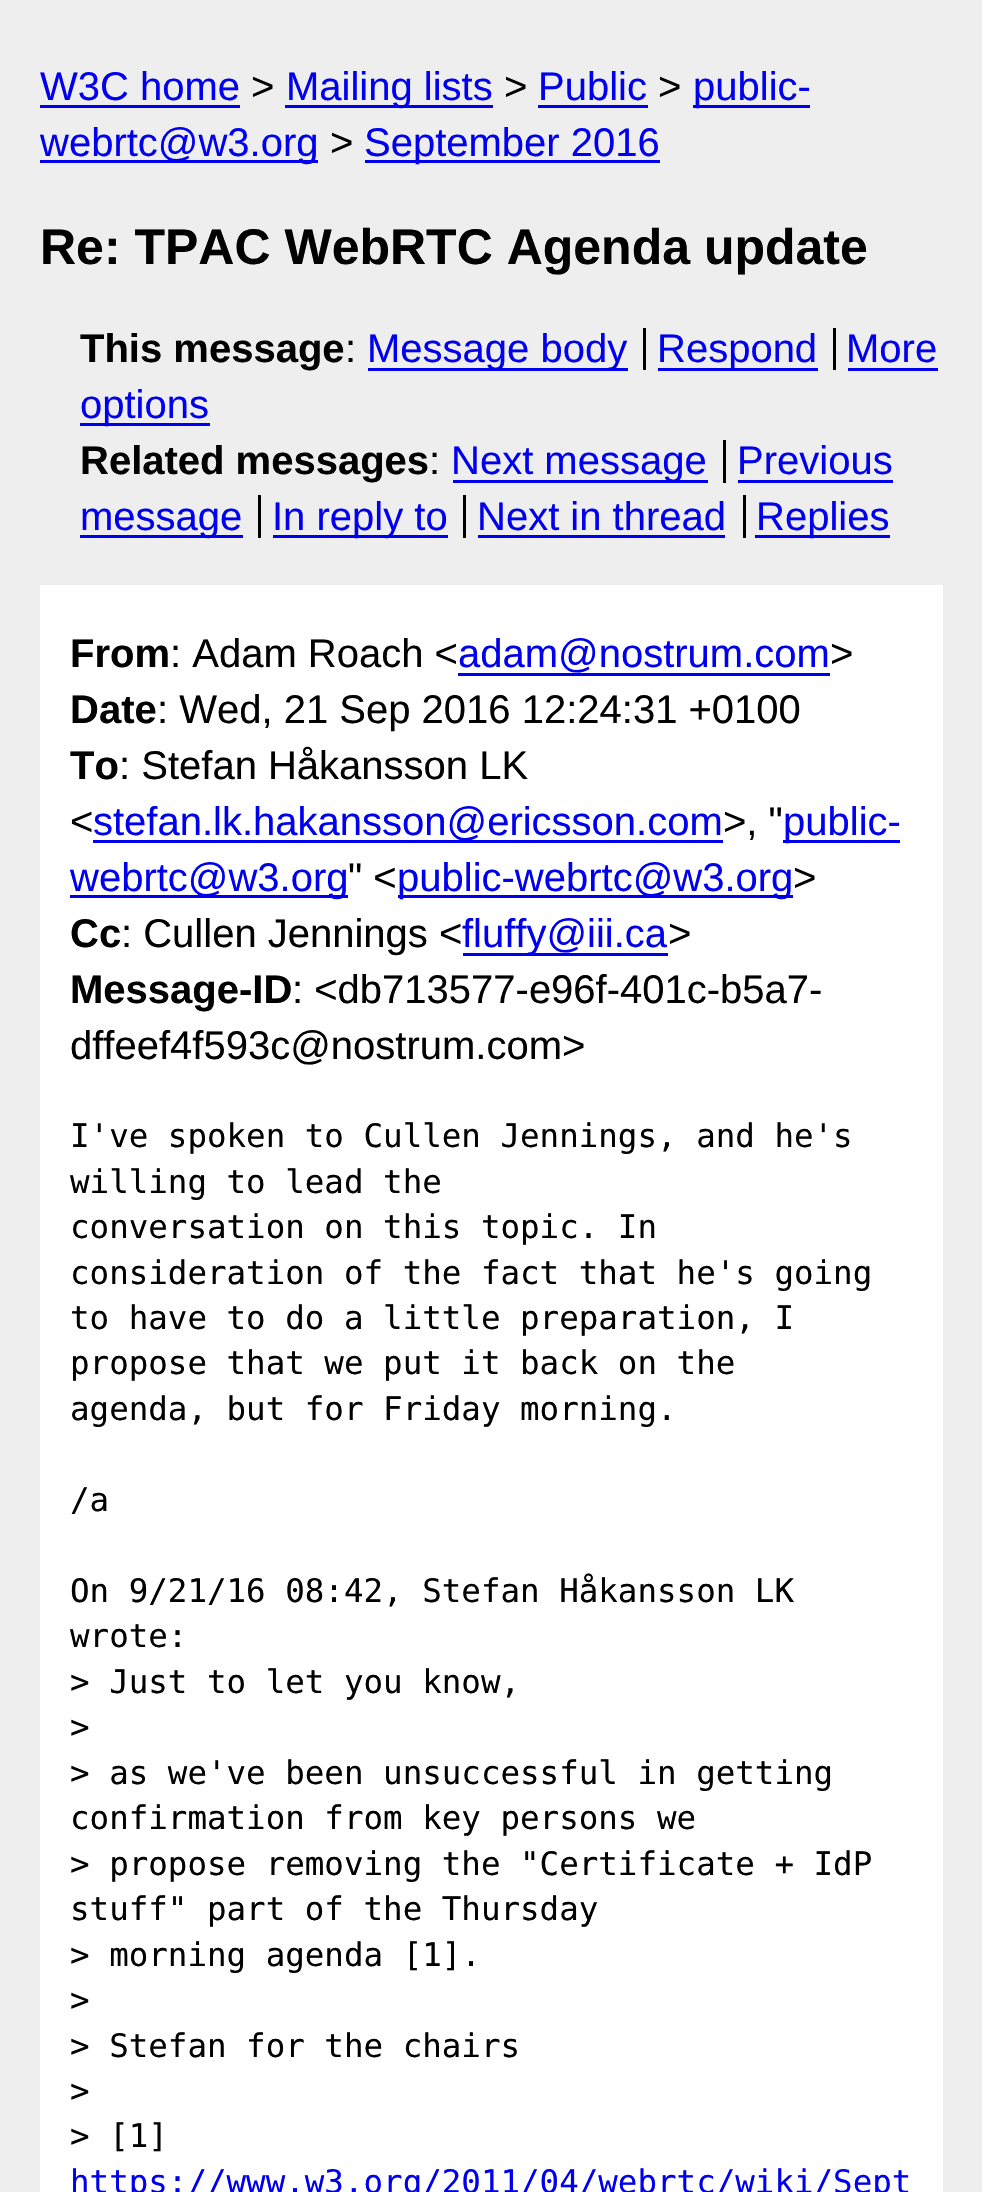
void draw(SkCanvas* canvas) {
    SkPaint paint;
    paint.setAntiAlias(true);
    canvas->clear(0xFFEEEEEE);
    SkFont font1(fontMgr->matchFamilyStyle("Liberation Sans", SkFontStyle::Normal()), 40);
    font1.setSubpixel(true);
    paint.setColor(0xFF0000EE);
    canvas->drawString("W3C home", 40, 100, font1, paint);
    canvas->drawRect(SkRect::MakeXYWH(40, 105, 200, 3), paint);
    paint.setColor(0xFF000000);
    canvas->drawString(">", 251, 100, font1, paint);
    paint.setColor(0xFF0000EE);
    canvas->drawRect(SkRect::MakeXYWH(285, 105, 208, 3), paint);
    canvas->drawString("Mailing lists", 286, 100, font1, paint);
    paint.setColor(0xFF000000);
    canvas->drawString(">", 504, 100, font1, paint);
    paint.setColor(0xFF0000EE);
    canvas->drawString("Public", 538, 100, font1, paint);
    canvas->drawRect(SkRect::MakeXYWH(538, 105, 110, 3), paint);
    paint.setColor(0xFF000000);
    canvas->drawString(">", 658, 100, font1, paint);
    paint.setColor(0xFF0000EE);
    canvas->drawRect(SkRect::MakeXYWH(693, 105, 117, 3), paint);
    canvas->drawString("public-", 693, 100, font1, paint);
    canvas->drawRect(SkRect::MakeXYWH(40, 160, 278, 3), paint);
    canvas->drawString("webrtc@w3.org", 40, 156, font1, paint);
    paint.setColor(0xFF000000);
    canvas->drawString(">", 330, 156, font1, paint);
    paint.setColor(0xFF0000EE);
    canvas->drawRect(SkRect::MakeXYWH(365, 160, 295, 3), paint);
    canvas->drawString("September 2016", 364, 156, font1, paint);
    SkFont font2(fontMgr->matchFamilyStyle("Liberation Sans", SkFontStyle::Bold()), 50);
    font2.setSubpixel(true);
    paint.setColor(0xFF000000);
    canvas->drawString("Re: TPAC WebRTC Agenda update", 40, 264, font2, paint);
    SkFont font3(fontMgr->matchFamilyStyle("Liberation Sans", SkFontStyle::Bold()), 40);
    font3.setSubpixel(true);
    canvas->drawString("This message", 80, 362, font3, paint);
    canvas->drawString(":", 345, 362, font1, paint);
    paint.setColor(0xFF0000EE);
    canvas->drawRect(SkRect::MakeXYWH(368, 368, 260, 3), paint);
    canvas->drawString("Message body", 367, 362, font1, paint);
    canvas->drawRect(SkRect::MakeXYWH(658, 368, 160, 3), paint);
    canvas->drawString("Respond", 657, 362, font1, paint);
    paint.setColor(0xFF000000);
    canvas->drawRect(SkRect::MakeXYWH(643, 328, 3, 42), paint);
    paint.setColor(0xFF0000EE);
    canvas->drawString("More", 846, 362, font1, paint);
    paint.setColor(0xFF000000);
    canvas->drawRect(SkRect::MakeXYWH(833, 328, 3, 42), paint);
    paint.setColor(0xFF0000EE);
    canvas->drawRect(SkRect::MakeXYWH(848, 368, 90, 3), paint);
    canvas->drawRect(SkRect::MakeXYWH(80, 423, 130, 3), paint);
    canvas->drawString("options", 80, 418, font1, paint);
    paint.setColor(0xFF000000);
    canvas->drawString("Related messages", 80, 474, font3, paint);
    canvas->drawString(":", 429, 474, font1, paint);
    paint.setColor(0xFF0000EE);
    canvas->drawRect(SkRect::MakeXYWH(453, 480, 255, 3), paint);
    canvas->drawString("Next message", 451, 474, font1, paint);
    canvas->drawString("Previous", 737, 474, font1, paint);
    paint.setColor(0xFF000000);
    canvas->drawRect(SkRect::MakeXYWH(723, 440, 3, 43), paint);
    paint.setColor(0xFF0000EE);
    canvas->drawRect(SkRect::MakeXYWH(738, 480, 155, 3), paint);
    canvas->drawRect(SkRect::MakeXYWH(80, 535, 163, 3), paint);
    canvas->drawString("message", 80, 530, font1, paint);
    canvas->drawRect(SkRect::MakeXYWH(273, 535, 175, 3), paint);
    canvas->drawString("In reply to", 272, 530, font1, paint);
    paint.setColor(0xFF000000);
    canvas->drawRect(SkRect::MakeXYWH(258, 495, 3, 43), paint);
    paint.setColor(0xFF0000EE);
    canvas->drawString("Next in thread", 477, 530, font1, paint);
    paint.setColor(0xFF000000);
    canvas->drawRect(SkRect::MakeXYWH(463, 495, 3, 43), paint);
    canvas->drawRect(SkRect::MakeXYWH(743, 495, 3, 43), paint);
    paint.setColor(0xFF0000EE);
    canvas->drawRect(SkRect::MakeXYWH(478, 535, 247, 3), paint);
    canvas->drawRect(SkRect::MakeXYWH(755, 535, 135, 3), paint);
    canvas->drawString("Replies", 756, 530, font1, paint);
    paint.setColor(0xFFFFFFFF);
    canvas->drawRect(SkRect::MakeXYWH(40, 585, 903, 1607), paint);
    paint.setColor(0xFF000000);
    canvas->drawString("From", 70, 667, font3, paint);
    canvas->drawString(": Adam Roach <", 170, 667, font1, paint);
    paint.setColor(0xFF0000EE);
    canvas->drawString("adam@nostrum.com", 458, 667, font1, paint);
    canvas->drawRect(SkRect::MakeXYWH(458, 673, 372, 3), paint);
    paint.setColor(0xFF000000);
    canvas->drawString(">", 830, 667, font1, paint);
    canvas->drawString("Date", 70, 723, font3, paint);
    canvas->drawString(": Wed, 21 Sep 2016 12:24:31 +0100", 157, 723, font1, paint);
    canvas->drawString("To", 70, 779, font3, paint);
    canvas->drawString(": Stefan Håkansson LK", 119, 779, font1, paint);
    canvas->drawString("<", 70, 835, font1, paint);
    paint.setColor(0xFF0000EE);
    canvas->drawRect(SkRect::MakeXYWH(93, 840, 630, 3), paint);
    canvas->drawString("stefan.lk.hakansson@ericsson.com", 93, 835, font1, paint);
    paint.setColor(0xFF000000);
    canvas->drawString(">, \"", 723, 835, font1, paint);
    paint.setColor(0xFF0000EE);
    canvas->drawRect(SkRect::MakeXYWH(783, 840, 117, 3), paint);
    canvas->drawString("public-", 783, 835, font1, paint);
    canvas->drawRect(SkRect::MakeXYWH(70, 895, 278, 3), paint);
    canvas->drawString("webrtc@w3.org", 70, 891, font1, paint);
    paint.setColor(0xFF000000);
    canvas->drawString("\" <", 348, 891, font1, paint);
    paint.setColor(0xFF0000EE);
    canvas->drawRect(SkRect::MakeXYWH(398, 895, 395, 3), paint);
    canvas->drawString("public-webrtc@w3.org", 397, 891, font1, paint);
    paint.setColor(0xFF000000);
    canvas->drawString(">", 793, 891, font1, paint);
    canvas->drawString("Cc", 70, 947, font3, paint);
    canvas->drawString(": Cullen Jennings <", 121, 947, font1, paint);
    paint.setColor(0xFF0000EE);
    canvas->drawRect(SkRect::MakeXYWH(463, 953, 205, 3), paint);
    canvas->drawString("fluffy@iii.ca", 462, 947, font1, paint);
    paint.setColor(0xFF000000);
    canvas->drawString(">", 668, 947, font1, paint);
    canvas->drawString("Message-ID", 70, 1003, font3, paint);
    canvas->drawString(": <db713577-e96f-401c-b5a7-", 292, 1003, font1, paint);
    canvas->drawString("dffeef4f593c@nostrum.com>", 70, 1059, font1, paint);
    SkFont font4(fontMgr->matchFamilyStyle("DejaVu Sans Mono", SkFontStyle::Normal()), 32.5f);
    font4.setSubpixel(true);
    canvas->drawString("I've spoken to Cullen Jennings, and he's", 70, 1147, font4, paint);
    canvas->drawString("willing to lead the", 70, 1193, font4, paint);
    canvas->drawString("conversation on this topic. In", 70, 1238, font4, paint);
    canvas->drawString("consideration of the fact that he's going", 70, 1284, font4, paint);
    canvas->drawString("to have to do a little preparation, I", 70, 1329, font4, paint);
    canvas->drawString("propose that we put it back on the", 70, 1374, font4, paint);
    canvas->drawString("agenda, but for Friday morning.", 70, 1420, font4, paint);
    canvas->drawString("/a", 70, 1511, font4, paint);
    canvas->drawString("On 9/21/16 08:42, Stefan Håkansson LK", 70, 1602, font4, paint);
    canvas->drawString("wrote:", 70, 1647, font4, paint);
    canvas->drawString("> Just to let you know,", 70, 1693, font4, paint);
    canvas->drawString(">", 70, 1738, font4, paint);
    canvas->drawString("> as we've been unsuccessful in getting", 70, 1784, font4, paint);
    canvas->drawString("confirmation from key persons we", 70, 1829, font4, paint);
    canvas->drawString("> propose removing the \"Certificate + IdP", 70, 1875, font4, paint);
    canvas->drawString("stuff\" part of the Thursday", 70, 1920, font4, paint);
    canvas->drawString("> morning agenda [1].", 70, 1966, font4, paint);
    canvas->drawString(">", 70, 2011, font4, paint);
    canvas->drawString("> Stefan for the chairs", 70, 2057, font4, paint);
    canvas->drawString(">", 70, 2102, font4, paint);
    canvas->drawString("> [1]", 70, 2147, font4, paint);
    paint.setColor(0xFF0000EE);
    canvas->drawString("https://www.w3.org/2011/04/webrtc/wiki/Sept", 70, 2193, font4, paint);
}
